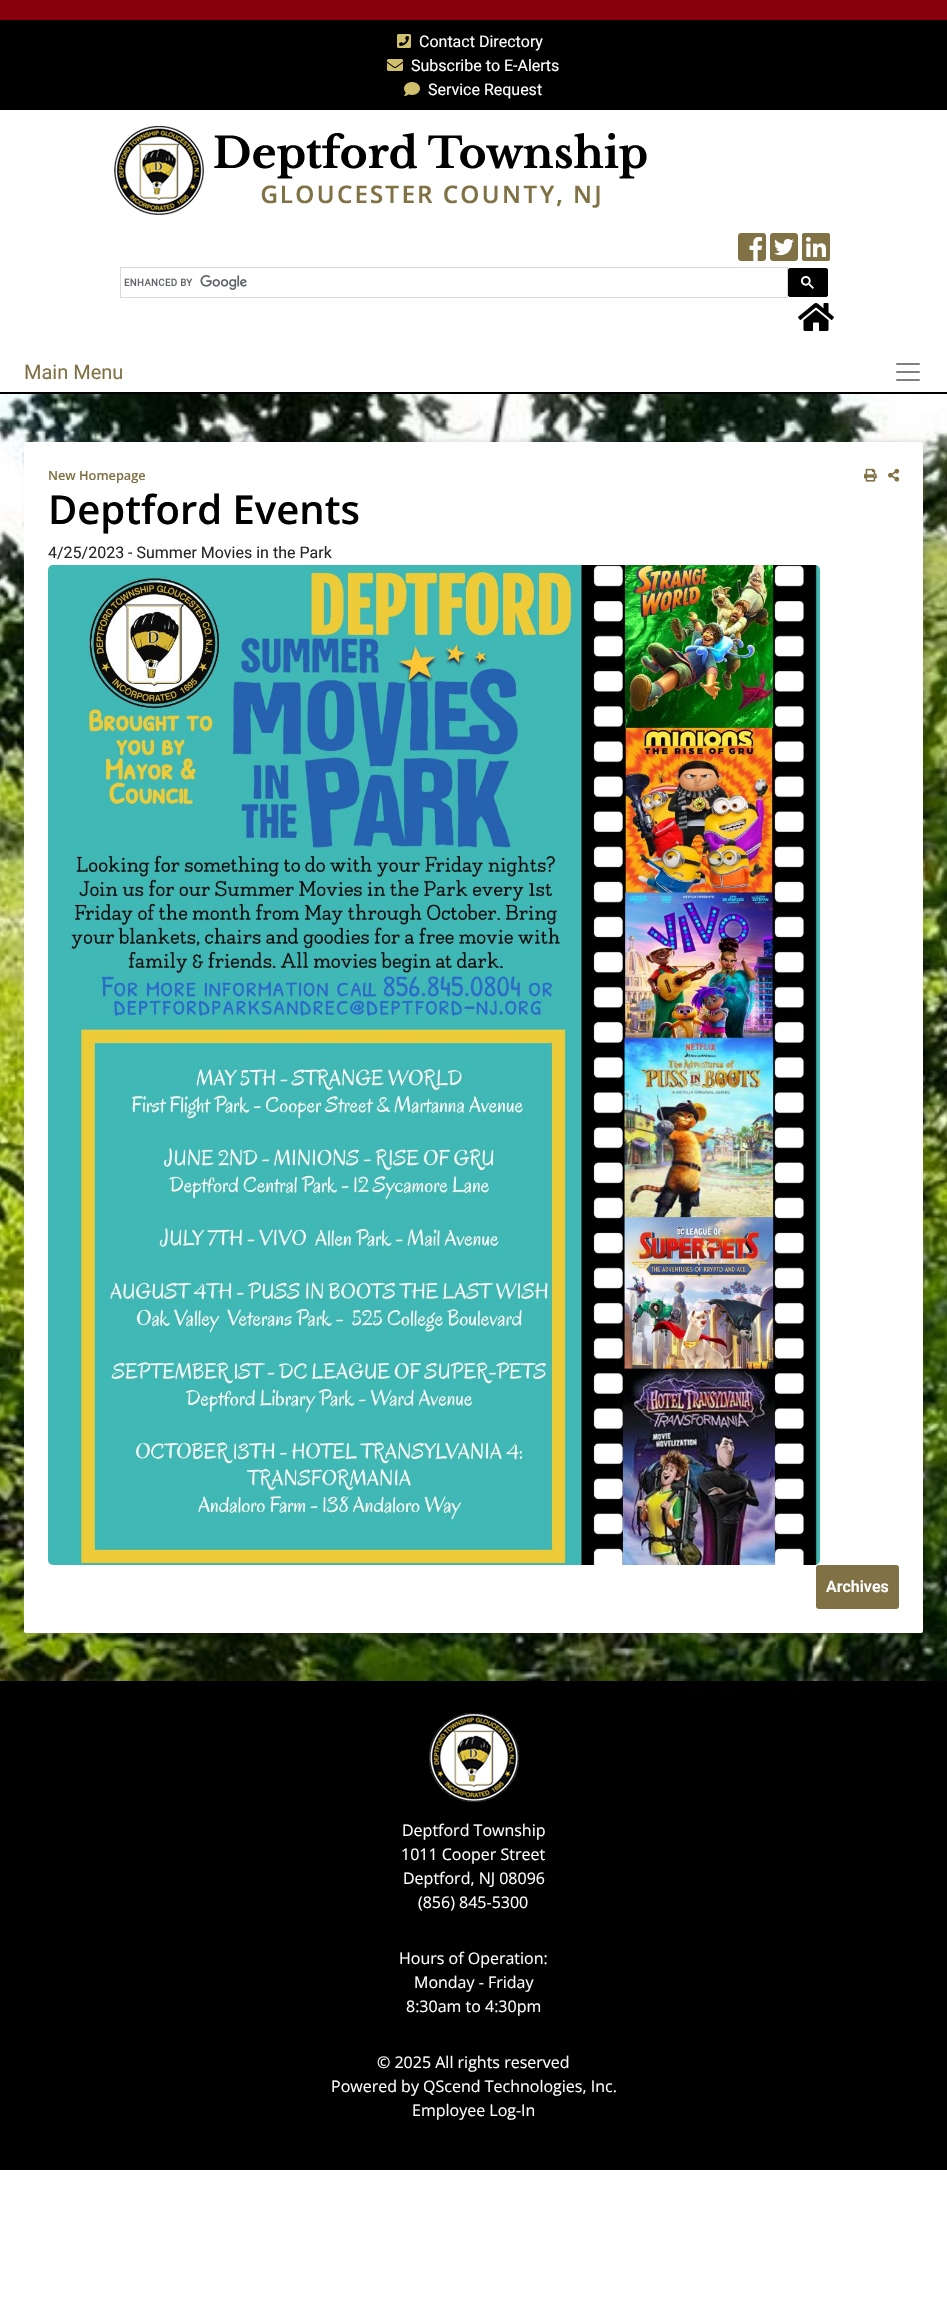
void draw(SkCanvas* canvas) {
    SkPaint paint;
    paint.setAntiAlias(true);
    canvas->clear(0xFFFFFFFF);
    paint.setColor(0xFF88000C);
    canvas->drawRect(SkRect::MakeXYWH(0, 0, 947, 20), paint);
    paint.setColor(0xFF000000);
    canvas->drawRect(SkRect::MakeXYWH(0, 20, 947, 90), paint);
    canvas->drawImageRect(SkImages::DeferredFromEncodedData(SkData::MakeFromFileName("img1.png")), SkRect::MakeXYWH(397, 34, 14, 14), SkSamplingOptions());
    SkFont font1(fontMgr->matchFamilyStyle("Roboto", SkFontStyle::Normal()), 16);
    font1.setSubpixel(true);
    paint.setColor(0xFFFFFFFF);
    canvas->drawString("Contact Directory", 419, 47, font1, paint);
    canvas->drawImageRect(SkImages::DeferredFromEncodedData(SkData::MakeFromFileName("img2.png")), SkRect::MakeXYWH(387, 59, 16, 12), SkSamplingOptions());
    canvas->drawString("Subscribe to E-Alerts", 411, 71, font1, paint);
    canvas->drawImageRect(SkImages::DeferredFromEncodedData(SkData::MakeFromFileName("img3.png")), SkRect::MakeXYWH(404, 82, 16, 14), SkSamplingOptions());
    canvas->drawString("Service Request", 428, 95, font1, paint);
    canvas->drawImageRect(SkImages::DeferredFromEncodedData(SkData::MakeFromFileName("img4.png")), SkRect::MakeXYWH(114, 126, 533, 89), SkSamplingOptions());
    canvas->drawImageRect(SkImages::DeferredFromEncodedData(SkData::MakeFromFileName("img5.png")), SkRect::MakeXYWH(738, 233, 28, 28), SkSamplingOptions());
    canvas->drawImageRect(SkImages::DeferredFromEncodedData(SkData::MakeFromFileName("img6.png")), SkRect::MakeXYWH(770, 233, 28, 28), SkSamplingOptions());
    canvas->drawImageRect(SkImages::DeferredFromEncodedData(SkData::MakeFromFileName("img7.png")), SkRect::MakeXYWH(802, 233, 28, 28), SkSamplingOptions());
    paint.setStyle(SkPaint::kStroke_Style);
    paint.setStrokeWidth(1);
    paint.setColor(0xFFD9D9D9);
    canvas->drawRect(SkRect::MakeXYWH(120.5f, 267.5f, 667, 30), paint);
    canvas->drawImageRect(SkImages::DeferredFromEncodedData(SkData::MakeFromFileName("img8.png")), SkRect::MakeXYWH(124, 275, 123, 15), SkSamplingOptions());
    paint.setStyle(SkPaint::kFill_Style);
    paint.setColor(0xFF000000);
    canvas->drawRoundRect(SkRect::MakeXYWH(788.5f, 268.5f, 39, 28), 1.5f, 1.5f, paint);
    paint.setStyle(SkPaint::kStroke_Style);
    canvas->drawRoundRect(SkRect::MakeXYWH(788.5f, 268.5f, 39, 28), 1.5f, 1.5f, paint);
    canvas->drawImageRect(SkImages::DeferredFromEncodedData(SkData::MakeFromFileName("img9.png")), SkRect::MakeXYWH(801, 276, 13, 13), SkSamplingOptions());
    canvas->drawImageRect(SkImages::DeferredFromEncodedData(SkData::MakeFromFileName("img10.png")), SkRect::MakeXYWH(798, 303, 36, 28), SkSamplingOptions());
    paint.setStyle(SkPaint::kFill_Style);
    canvas->drawRect(SkRect::MakeXYWH(0, 392, 947, 2), paint);
    SkFont font2(fontMgr->matchFamilyStyle("Roboto", SkFontStyle::Normal()), 20);
    font2.setSubpixel(true);
    paint.setColor(0xFF817246);
    canvas->drawString("Main Menu", 24, 379, font2, paint);
    canvas->drawImageRect(SkImages::DeferredFromEncodedData(SkData::MakeFromFileName("img11.png")), SkRect::MakeXYWH(896, 363, 24, 18), SkSamplingOptions());
    canvas->drawImageRect(SkImages::DeferredFromEncodedData(SkData::MakeFromFileName("img12.png")), SkRect::MakeXYWH(0, 394, 947, 1287), SkSamplingOptions());
    paint.setColor(0x29000000);
    paint.setMaskFilter(SkMaskFilter::MakeBlur(kNormal_SkBlurStyle, 3));
    canvas->drawRoundRect(SkRect::MakeXYWH(29, 442, 899, 1191), 2, 2, paint);
    paint.setMaskFilter(nullptr);
    paint.setColor(0xFFFFFFFF);
    canvas->drawRoundRect(SkRect::MakeXYWH(24, 442, 899, 1191), 2, 2, paint);
    SkFont font3(fontMgr->matchFamilyStyle("Open Sans", SkFontStyle(600, SkFontStyle::kNormal_Width, SkFontStyle::kUpright_Slant)), 12.75f);
    font3.setSubpixel(true);
    paint.setColor(0xFF817246);
    canvas->drawString("New Homepage", 48, 480, font3, paint);
    canvas->drawImageRect(SkImages::DeferredFromEncodedData(SkData::MakeFromFileName("img13.png")), SkRect::MakeXYWH(864, 468, 13, 14), SkSamplingOptions());
    canvas->drawImageRect(SkImages::DeferredFromEncodedData(SkData::MakeFromFileName("img14.png")), SkRect::MakeXYWH(888, 468, 12, 14), SkSamplingOptions());
    SkFont font4(fontMgr->matchFamilyStyle("Open Sans", SkFontStyle(600, SkFontStyle::kNormal_Width, SkFontStyle::kUpright_Slant)), 40);
    font4.setSubpixel(true);
    paint.setColor(0xFF000000);
    canvas->drawString("Deptford Events", 48, 524, font4, paint);
    paint.setColor(0xFF282828);
    canvas->drawString("4/25/2023 - Summer Movies in the Park", 48, 558, font1, paint);
    canvas->drawImageRect(SkImages::DeferredFromEncodedData(SkData::MakeFromFileName("img15.png")), SkRect::MakeXYWH(48, 565, 772, 1000), SkSamplingOptions());
    paint.setColor(0xFF817246);
    canvas->drawRoundRect(SkRect::MakeXYWH(816, 1565, 83, 44), 3, 3, paint);
    SkFont font5(fontMgr->matchFamilyStyle("Roboto", SkFontStyle(600, SkFontStyle::kNormal_Width, SkFontStyle::kUpright_Slant)), 16);
    font5.setSubpixel(true);
    paint.setColor(0xFFFFFFFF);
    canvas->drawString("Archives", 826, 1592, font5, paint);
    paint.setColor(0xFF000000);
    canvas->drawRect(SkRect::MakeXYWH(0, 1681, 947, 489), paint);
    canvas->drawImageRect(SkImages::DeferredFromEncodedData(SkData::MakeFromFileName("img16.png")), SkRect::MakeXYWH(429, 1713, 90, 89), SkSamplingOptions());
    SkFont font6(fontMgr->matchFamilyStyle("Open Sans", SkFontStyle::Normal()), 16);
    font6.setSubpixel(true);
    paint.setColor(0xFFFFFFFF);
    canvas->drawString("Deptford Township", 402, 1836, font6, paint);
    canvas->drawString("1011 Cooper Street", 401, 1860, font6, paint);
    canvas->drawString("Deptford, NJ 08096", 403, 1884, font6, paint);
    canvas->drawString("(856) 845-5300", 418, 1908, font6, paint);
    canvas->drawString("Hours of Operation:", 399, 1964, font6, paint);
    canvas->drawString("Monday - Friday", 414, 1988, font6, paint);
    canvas->drawString("8:30am to 4:30pm", 406, 2012, font6, paint);
    canvas->drawString("© 2025 All rights reserved", 377, 2068, font6, paint);
    canvas->drawString("Powered by QScend Technologies, Inc.", 331, 2092, font6, paint);
    canvas->drawString("Employee Log-In", 412, 2116, font6, paint);
}
